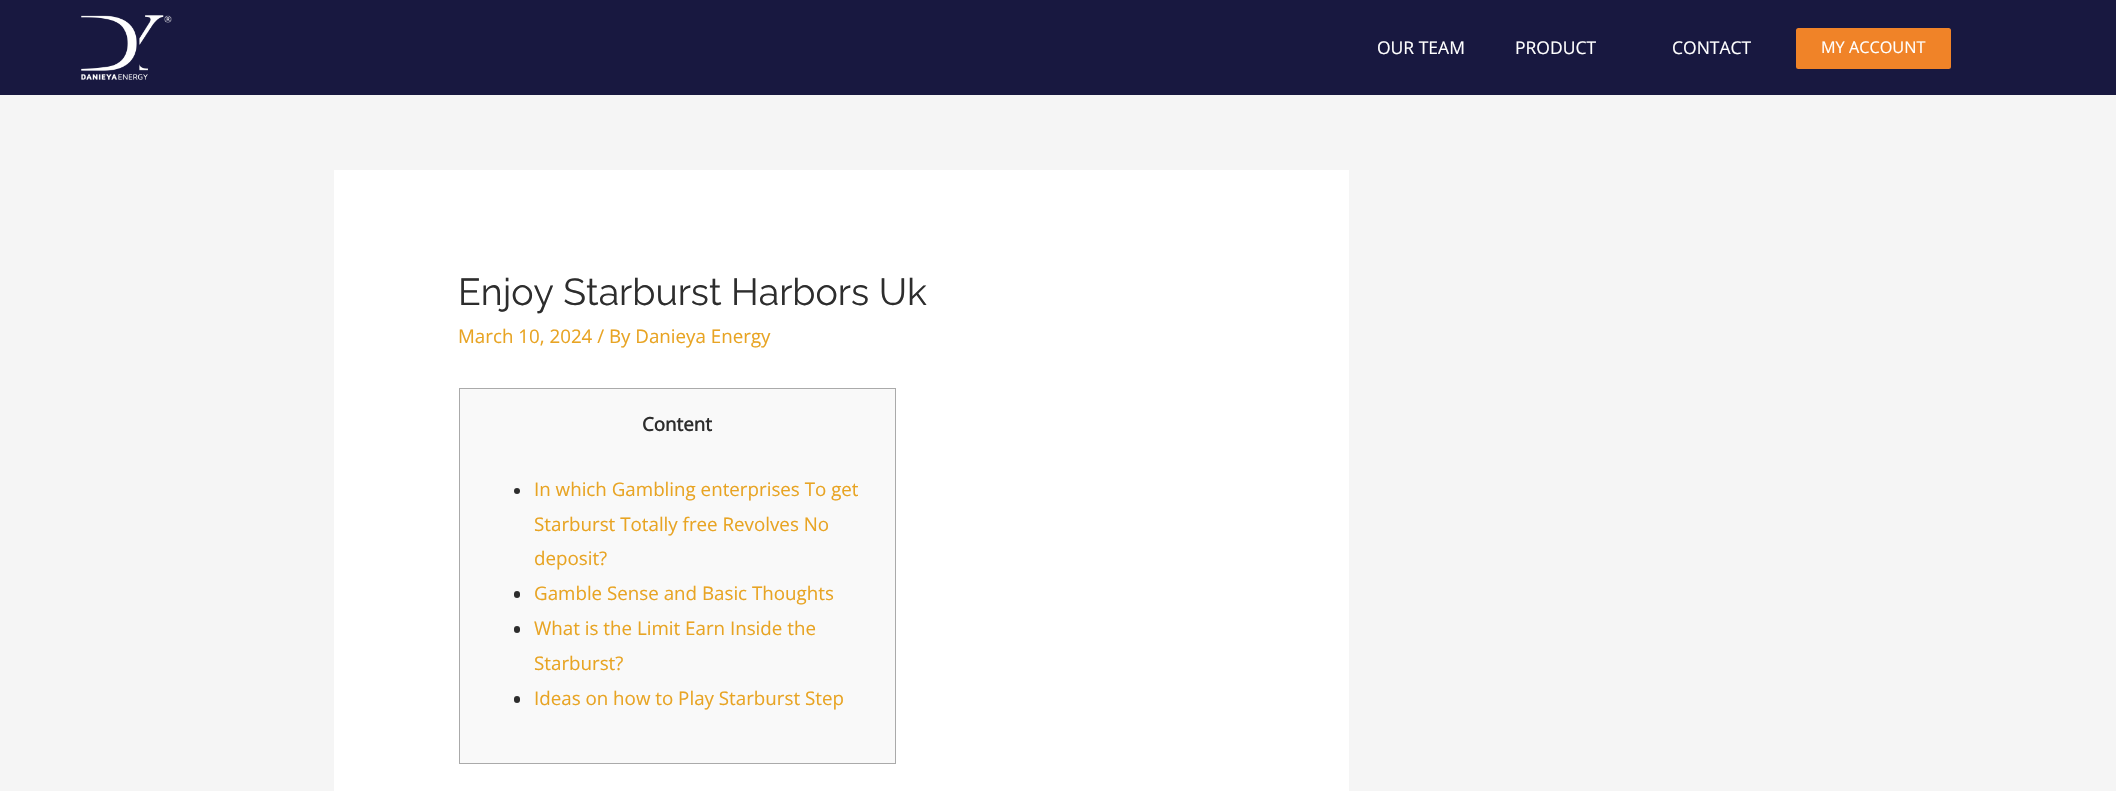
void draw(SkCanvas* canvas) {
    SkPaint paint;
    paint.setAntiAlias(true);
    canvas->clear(0xFFF5F5F5);
    paint.setColor(0xFF181840);
    canvas->drawRect(SkRect::MakeXYWH(0, 0, 2116, 95), paint);
    canvas->drawImageRect(SkImages::DeferredFromEncodedData(SkData::MakeFromFileName("img1.png")), SkRect::MakeXYWH(81, 15, 91, 65), SkSamplingOptions());
    SkFont font1(fontMgr->matchFamilyStyle("Open Sans", SkFontStyle::Normal()), 17.5f);
    font1.setSubpixel(true);
    paint.setColor(0xFFFFFFFF);
    canvas->drawString("OUR TEAM", 1377, 54, font1, paint);
    canvas->drawString("PRODUCT", 1515, 54, font1, paint);
    canvas->drawString("CONTACT", 1672, 54, font1, paint);
    paint.setColor(0xFFF08328);
    canvas->drawRoundRect(SkRect::MakeXYWH(1796, 28, 155, 41), 2.5f, 2.5f, paint);
    SkFont font2(fontMgr->matchFamilyStyle("Open Sans", SkFontStyle::Normal()), 16.25f);
    font2.setSubpixel(true);
    paint.setColor(0xFFFFFFFF);
    canvas->drawString("MY ACCOUNT", 1821, 53, font2, paint);
    canvas->drawRect(SkRect::MakeXYWH(334, 170, 1015, 621), paint);
    SkFont font3(fontMgr->matchFamilyStyle("Raleway", SkFontStyle(100, SkFontStyle::kNormal_Width, SkFontStyle::kUpright_Slant)), 37.5f);
    font3.setSubpixel(true);
    paint.setColor(0xFF2D2D2D);
    canvas->drawString("Enjoy Starburst Harbors Uk", 458, 305, font3, paint);
    SkFont font4(fontMgr->matchFamilyStyle("Open Sans", SkFontStyle::Normal()), 18.75f);
    font4.setSubpixel(true);
    paint.setColor(0xFFE8A423);
    canvas->drawString("March 10, 2024 / By Danieya Energy", 458, 343, font4, paint);
    paint.setColor(0xFFF9F9F9);
    canvas->drawRect(SkRect::MakeXYWH(459.5f, 388.5f, 436, 375), paint);
    paint.setStyle(SkPaint::kStroke_Style);
    paint.setStrokeWidth(1);
    paint.setColor(0xFFAAAAAA);
    canvas->drawRect(SkRect::MakeXYWH(459.5f, 388.5f, 436, 375), paint);
    SkFont font5(fontMgr->matchFamilyStyle("Open Sans", SkFontStyle::Bold()), 18.75f);
    font5.setSubpixel(true);
    paint.setStyle(SkPaint::kFill_Style);
    paint.setColor(0xFF2D2D2D);
    canvas->drawString("Content", 642, 431, font5, paint);
    canvas->drawCircle(517, 491, 3, paint);
    paint.setColor(0xFFE8A423);
    canvas->drawString("In which Gambling enterprises To get", 534, 496, font4, paint);
    canvas->drawString("Starburst Totally free Revolves No", 534, 531, font4, paint);
    canvas->drawString("deposit?", 534, 565, font4, paint);
    paint.setColor(0xFF2D2D2D);
    canvas->drawRoundRect(SkRect::MakeXYWH(514, 591, 6, 7), 3, 3, paint);
    paint.setColor(0xFFE8A423);
    canvas->drawString("Gamble Sense and Basic Thoughts", 534, 600, font4, paint);
    paint.setColor(0xFF2D2D2D);
    canvas->drawRoundRect(SkRect::MakeXYWH(514, 626, 6, 7), 3, 3, paint);
    paint.setColor(0xFFE8A423);
    canvas->drawString("What is the Limit Earn Inside the", 534, 635, font4, paint);
    canvas->drawString("Starburst?", 534, 670, font4, paint);
    paint.setColor(0xFF2D2D2D);
    canvas->drawRoundRect(SkRect::MakeXYWH(514, 696, 6, 7), 3, 3, paint);
    paint.setColor(0xFFE8A423);
    canvas->drawString("Ideas on how to Play Starburst Step", 534, 705, font4, paint);
}
